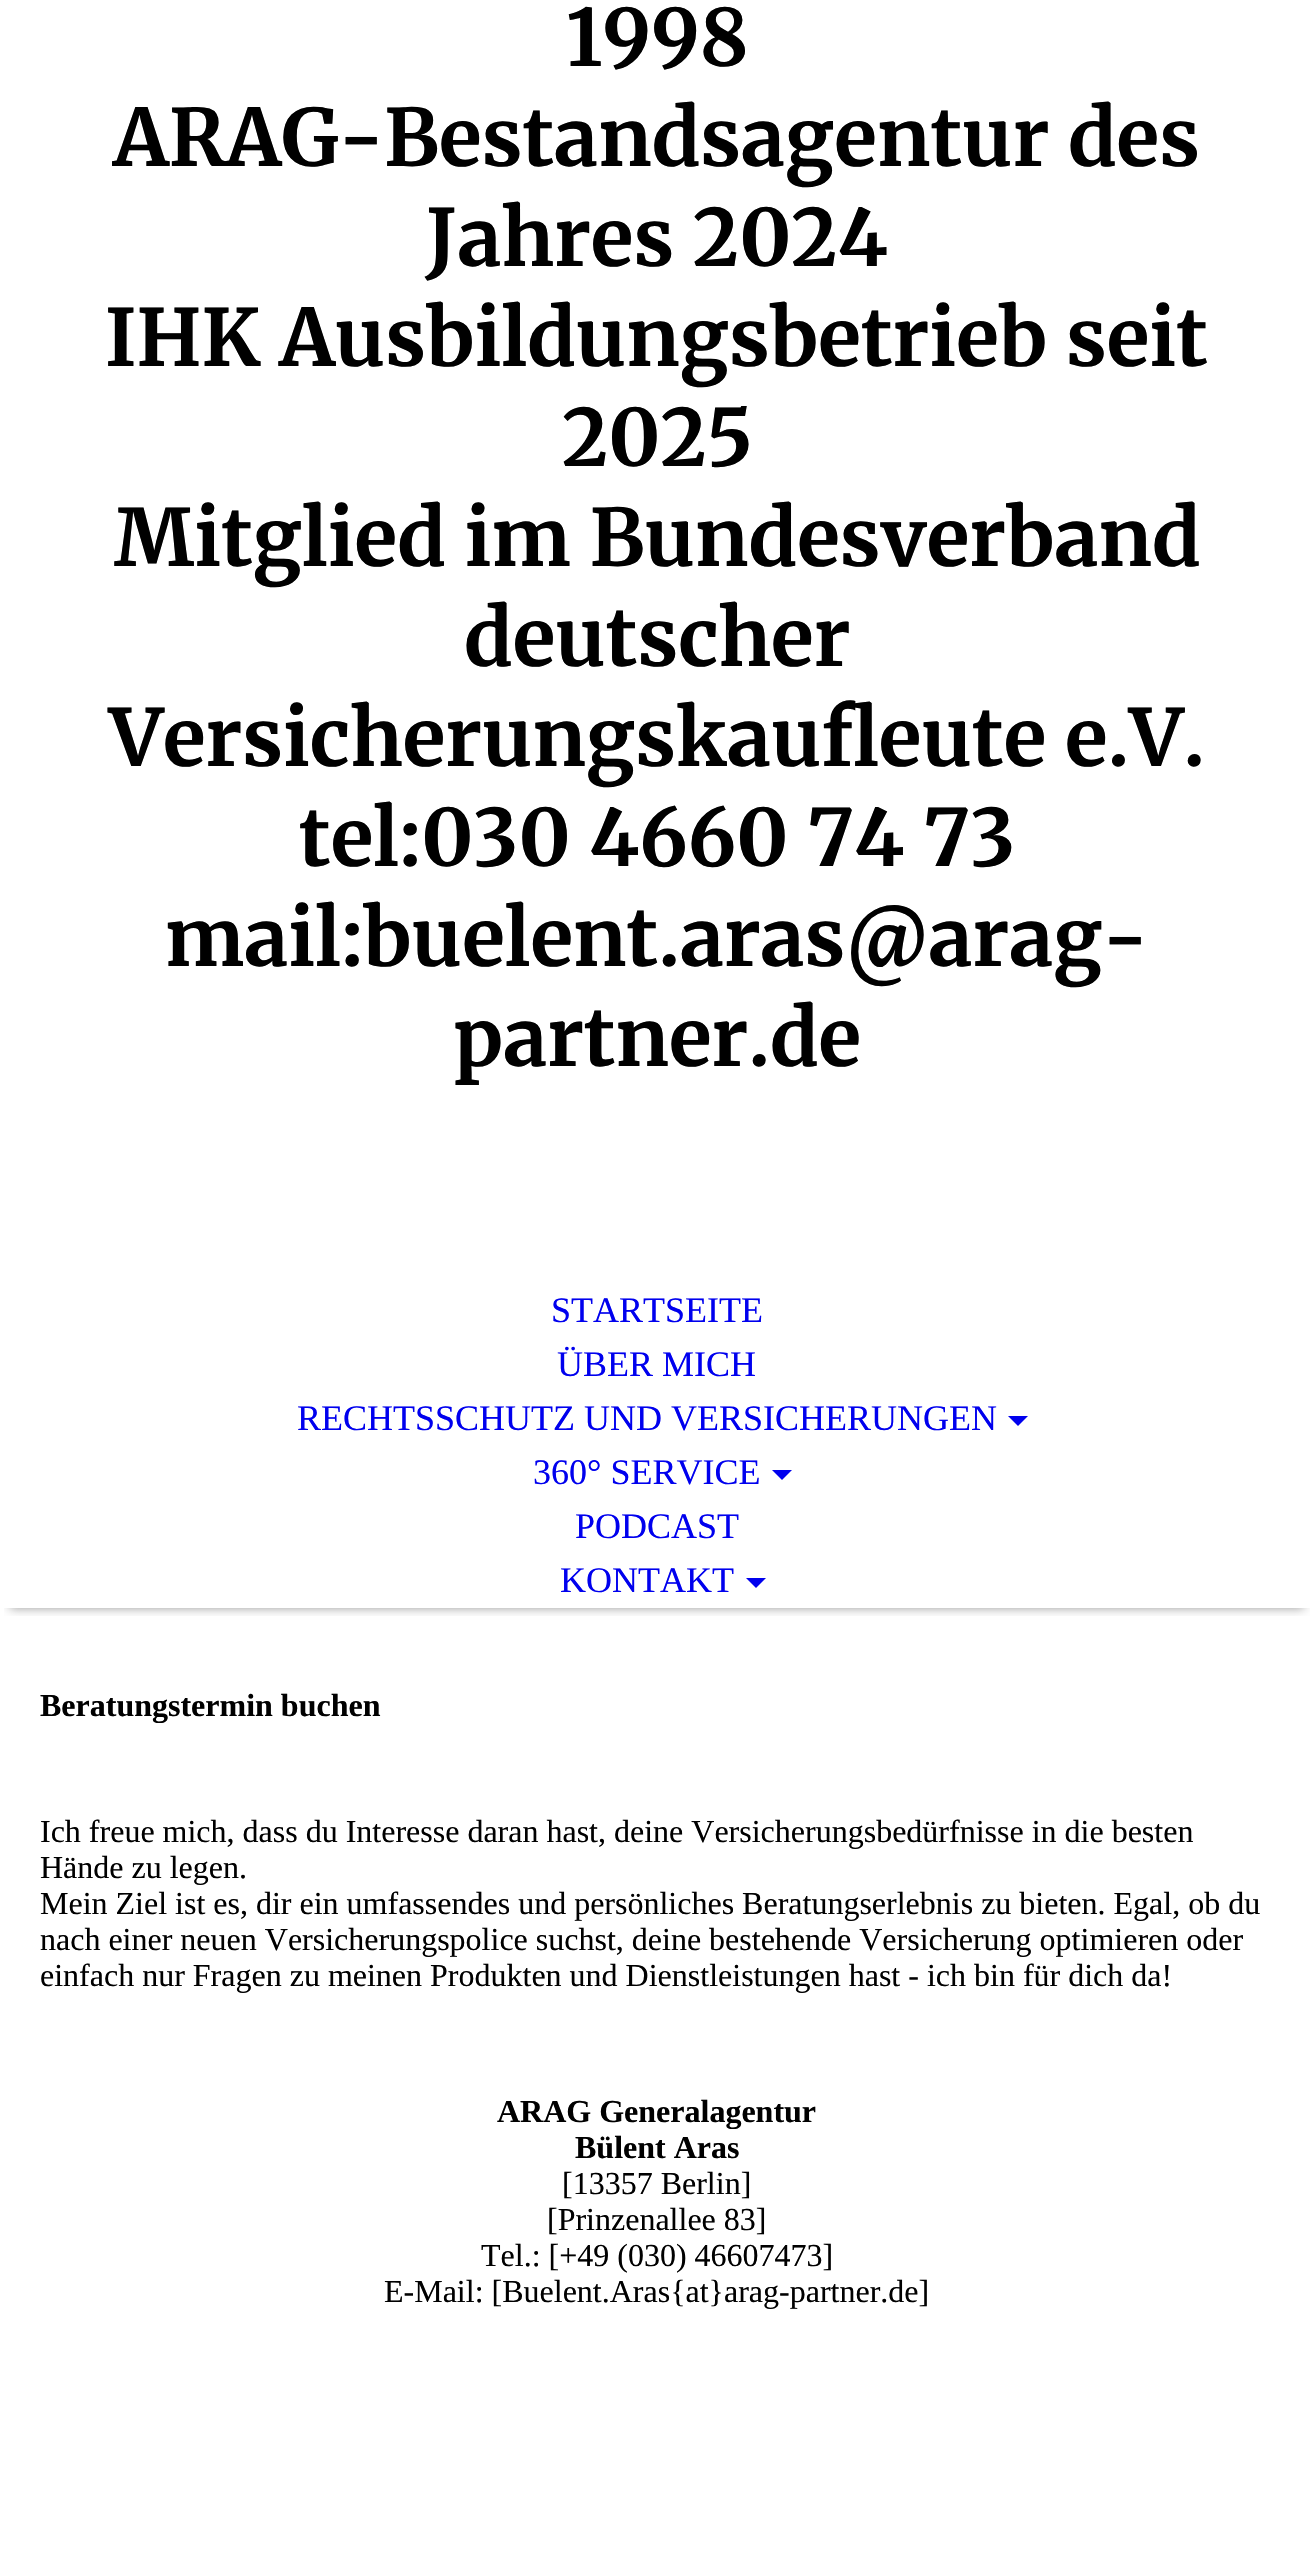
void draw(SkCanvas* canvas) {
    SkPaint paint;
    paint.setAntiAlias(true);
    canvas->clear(0xFFFFFFFF);
    SkFont font1(fontMgr->matchFamilyStyle("Merriweather", SkFontStyle::Bold()), 78.8f);
    font1.setSubpixel(true);
    paint.setColor(0xFF000000);
    canvas->drawString("1998", 566, 66, font1, paint);
    canvas->drawString("ARAG-Bestandsagentur des", 113, 166, font1, paint);
    canvas->drawString("Jahres 2024", 426, 266, font1, paint);
    canvas->drawString("IHK Ausbildungsbetrieb seit", 105, 366, font1, paint);
    canvas->drawString("2025", 562, 466, font1, paint);
    canvas->drawString("Mitglied im Bundesverband", 114, 566, font1, paint);
    canvas->drawString("deutscher", 464, 666, font1, paint);
    canvas->drawString("Versicherungskaufleute e.V.", 109, 766, font1, paint);
    canvas->drawString("tel:030 4660 74 73", 299, 866, font1, paint);
    canvas->drawString("mail:buelent.aras@arag-", 165, 966, font1, paint);
    canvas->drawString("partner.de", 453, 1066, font1, paint);
    canvas->save();
    canvas->clipRect(SkRect::MakeXYWH(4, 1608, 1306, 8));
    paint.setColor(0x66000000);
    paint.setMaskFilter(SkMaskFilter::MakeBlur(kNormal_SkBlurStyle, 5));
    canvas->drawRect(SkRect::MakeXYWH(10, 1264, 1294, 344), paint);
    paint.setMaskFilter(nullptr);
    canvas->restore();
    SkFont font2(fontMgr->matchFamilyStyle("Liberation Serif", SkFontStyle::Normal()), 36);
    font2.setSubpixel(true);
    paint.setColor(0xFF0000EE);
    canvas->drawString("STARTSEITE", 551, 1322, font2, paint);
    canvas->drawString("ÜBER MICH", 557, 1376, font2, paint);
    canvas->drawString("RECHTSSCHUTZ UND VERSICHERUNGEN", 297, 1430, font2, paint);
    canvas->drawPath(SkPathBuilder().moveTo(1008, 1416).lineTo(1028, 1416).lineTo(1018, 1426).close().detach(), paint);
    canvas->drawString("360° SERVICE", 533, 1484, font2, paint);
    canvas->drawPath(SkPathBuilder().moveTo(772, 1470).lineTo(792, 1470).lineTo(782, 1480).close().detach(), paint);
    canvas->drawString("PODCAST", 575, 1538, font2, paint);
    canvas->drawString("KONTAKT", 560, 1592, font2, paint);
    canvas->drawPath(SkPathBuilder().moveTo(746, 1578).lineTo(766, 1578).lineTo(756, 1588).close().detach(), paint);
    SkFont font3(fontMgr->matchFamilyStyle("Liberation Serif", SkFontStyle::Bold()), 32);
    font3.setSubpixel(true);
    paint.setColor(0xFF000000);
    canvas->drawString("Beratungstermin buchen", 40, 1716, font3, paint);
    SkFont font4(fontMgr->matchFamilyStyle("Liberation Serif", SkFontStyle::Normal()), 32);
    font4.setSubpixel(true);
    canvas->drawString("Ich freue mich, dass du Interesse daran hast, deine Versicherungsbedürfnisse in die besten", 40, 1842, font4, paint);
    canvas->drawString("Hände zu legen.", 40, 1878, font4, paint);
    canvas->drawString("Mein Ziel ist es, dir ein umfassendes und persönliches Beratungserlebnis zu bieten. Egal, ob du", 40, 1914, font4, paint);
    canvas->drawString("nach einer neuen Versicherungspolice suchst, deine bestehende Versicherung optimieren oder", 40, 1950, font4, paint);
    canvas->drawString("einfach nur Fragen zu meinen Produkten und Dienstleistungen hast - ich bin für dich da!", 40, 1986, font4, paint);
    canvas->drawString("ARAG Generalagentur", 497, 2122, font3, paint);
    canvas->drawString("Bülent Aras", 575, 2158, font3, paint);
    canvas->drawString("[13357 Berlin]", 562, 2194, font4, paint);
    canvas->drawString("[Prinzenallee 83]", 547, 2230, font4, paint);
    canvas->drawString("Tel.: [+49 (030) 46607473]", 481, 2266, font4, paint);
    canvas->drawString("E-Mail: [Buelent.Aras{at}arag-partner.de]", 384, 2302, font4, paint);
}
